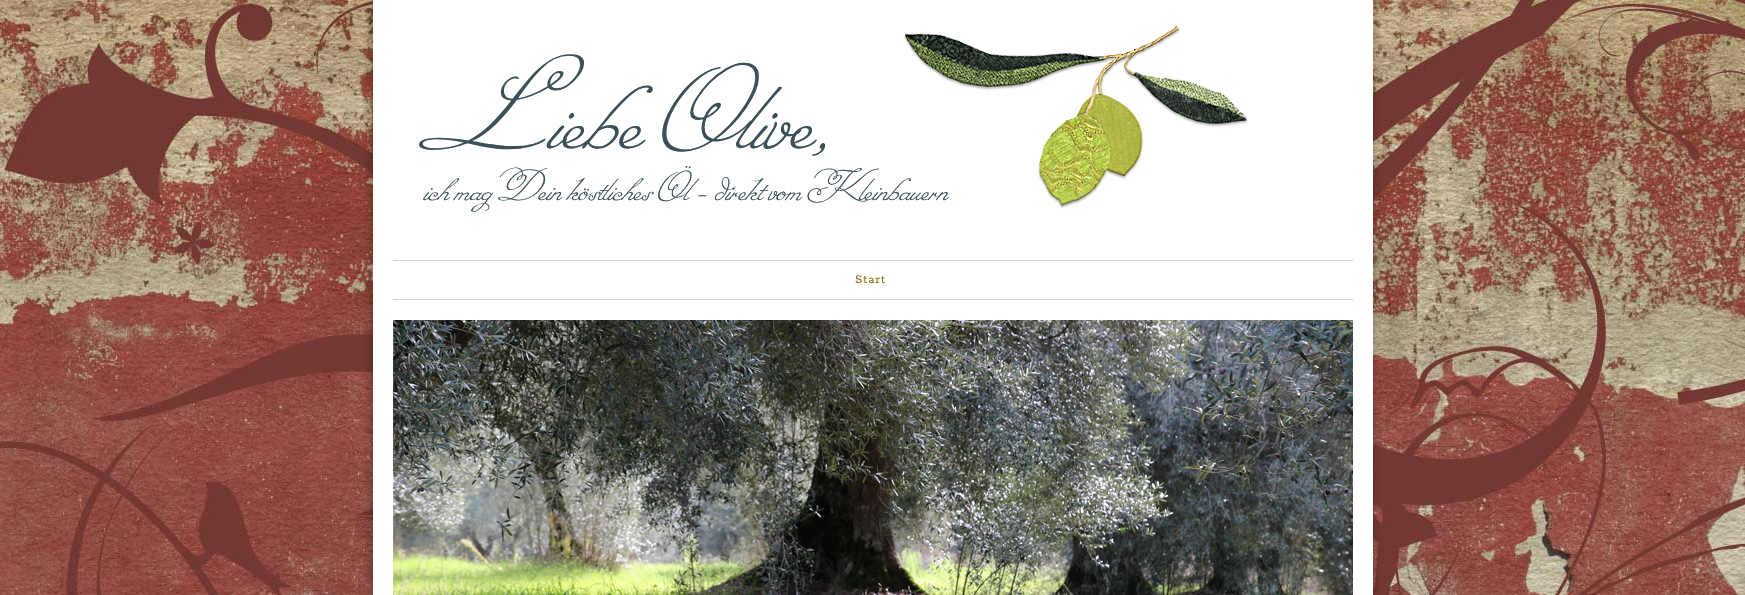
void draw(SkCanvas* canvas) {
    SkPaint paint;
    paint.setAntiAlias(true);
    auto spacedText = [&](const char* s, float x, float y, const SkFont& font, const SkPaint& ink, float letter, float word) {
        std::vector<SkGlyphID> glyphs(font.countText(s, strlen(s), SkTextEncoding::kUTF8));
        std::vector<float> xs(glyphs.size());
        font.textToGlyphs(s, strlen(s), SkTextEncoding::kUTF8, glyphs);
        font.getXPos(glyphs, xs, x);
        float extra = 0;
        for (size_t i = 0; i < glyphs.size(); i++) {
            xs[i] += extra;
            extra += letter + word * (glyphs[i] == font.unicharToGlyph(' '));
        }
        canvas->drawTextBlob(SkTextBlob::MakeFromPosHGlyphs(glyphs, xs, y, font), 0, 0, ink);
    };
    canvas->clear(0xFFFFFFFF);
    canvas->drawImageRect(SkImages::DeferredFromEncodedData(SkData::MakeFromFileName("img1.png")), SkRect::MakeXYWH(0, 0, 1745, 595), SkSamplingOptions());
    canvas->drawImageRect(SkImages::DeferredFromEncodedData(SkData::MakeFromFileName("img2.png")), SkRect::MakeXYWH(363, 0, 1018, 595), SkSamplingOptions());
    paint.setColor(0xFFFFFFFF);
    canvas->drawRect(SkRect::MakeXYWH(373, 0, 1000, 595), paint);
    canvas->drawImageRect(SkImages::DeferredFromEncodedData(SkData::MakeFromFileName("img3.png")), SkRect::MakeXYWH(904, 25, 344, 184), SkSamplingOptions());
    SkFont font1(fontMgr->matchFamilyStyle("Miss Fajardose", SkFontStyle::Normal()), 130);
    font1.setSubpixel(true);
    paint.setColor(0xFF3B5059);
    canvas->drawString("Liebe Olive,", 423, 148, font1, paint);
    SkFont font2(fontMgr->matchFamilyStyle("Miss Fajardose", SkFontStyle::Normal()), 45);
    font2.setSubpixel(true);
    canvas->drawString("ich mag Dein köstliches Öl – direkt vom Kleinbauern", 423, 200, font2, paint);
    paint.setColor(0xFFCFCFCF);
    canvas->drawRect(SkRect::MakeXYWH(393, 260, 960, 1), paint);
    canvas->drawRect(SkRect::MakeXYWH(393, 299, 960, 1), paint);
    SkFont font3(fontMgr->matchFamilyStyle("Rokkitt", SkFontStyle(600, SkFontStyle::kNormal_Width, SkFontStyle::kUpright_Slant)), 13);
    font3.setSubpixel(true);
    paint.setColor(0xFF9A6614);
    spacedText("Start", 855, 283, font3, paint, 1, 0);
    canvas->drawImageRect(SkImages::DeferredFromEncodedData(SkData::MakeFromFileName("img4.png")), SkRect::MakeXYWH(393, 320, 960, 275), SkSamplingOptions());
}
